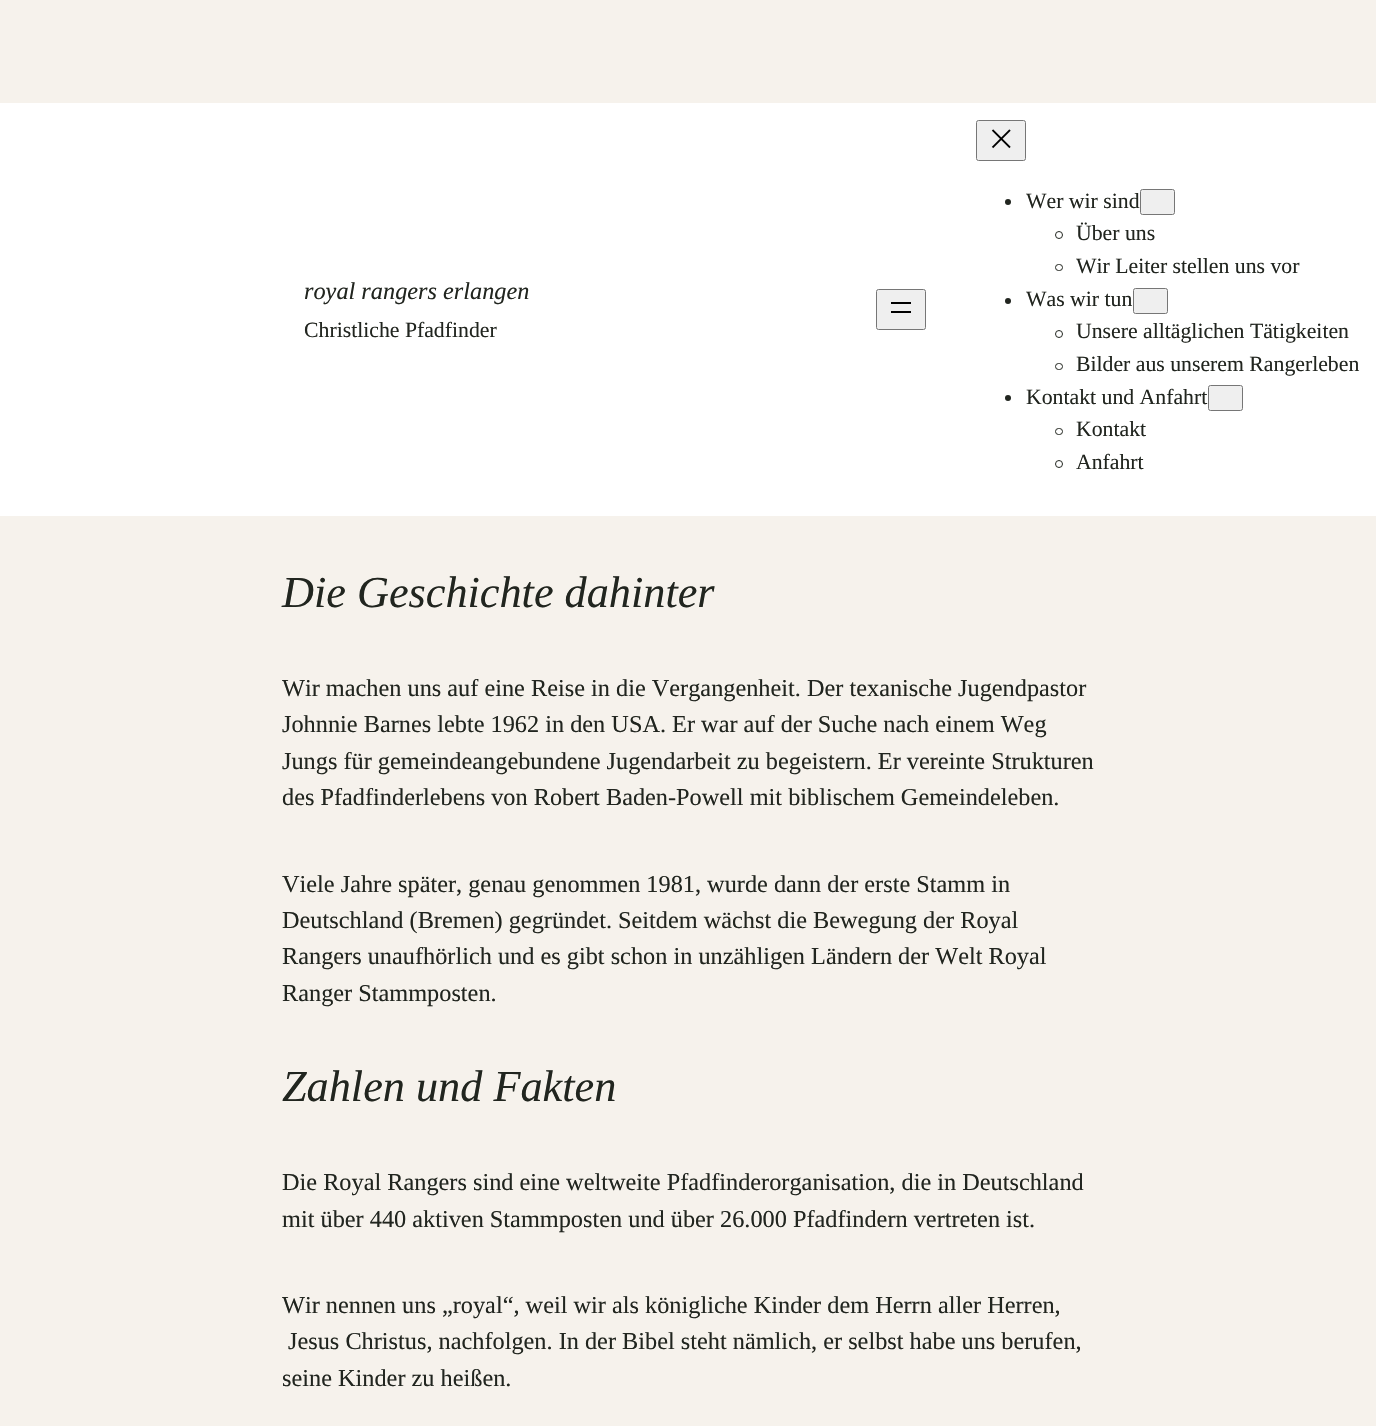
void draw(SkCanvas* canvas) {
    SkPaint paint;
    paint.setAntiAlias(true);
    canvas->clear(0xFFF6F2EC);
    paint.setColor(0xFFFFFFFF);
    canvas->drawRect(SkRect::MakeXYWH(0, 103, 1376, 413), paint);
    SkFont font1(fontMgr->matchFamilyStyle("Liberation Serif", SkFontStyle::Italic()), 24.3f);
    font1.setSubpixel(true);
    paint.setColor(0xFF21251F);
    canvas->drawString("royal rangers erlangen", 304, 299, font1, paint);
    SkFont font2(fontMgr->matchFamilyStyle("Liberation Serif", SkFontStyle::Normal()), 21.75f);
    font2.setSubpixel(true);
    canvas->drawString("Christliche Pfadfinder", 304, 337, font2, paint);
    paint.setColor(0xFFEFEFEF);
    canvas->drawRoundRect(SkRect::MakeXYWH(876.5f, 289.5f, 49, 40), 2, 2, paint);
    paint.setStyle(SkPaint::kStroke_Style);
    paint.setStrokeWidth(1);
    paint.setColor(0xFF767676);
    canvas->drawRoundRect(SkRect::MakeXYWH(876.5f, 289.5f, 49, 40), 2, 2, paint);
    paint.setStyle(SkPaint::kFill_Style);
    paint.setColor(0xFF000000);
    canvas->drawRect(SkRect::MakeXYWH(891, 302, 20, 2), paint);
    canvas->drawRect(SkRect::MakeXYWH(891, 311, 20, 2), paint);
    paint.setColor(0xFFEFEFEF);
    canvas->drawRoundRect(SkRect::MakeXYWH(976.5f, 120.5f, 49, 40), 2, 2, paint);
    paint.setStyle(SkPaint::kStroke_Style);
    paint.setColor(0xFF767676);
    canvas->drawRoundRect(SkRect::MakeXYWH(976.5f, 120.5f, 49, 40), 2, 2, paint);
    canvas->drawImageRect(SkImages::DeferredFromEncodedData(SkData::MakeFromFileName("img1.png")), SkRect::MakeXYWH(991, 129, 20, 20), SkSamplingOptions());
    paint.setStyle(SkPaint::kFill_Style);
    paint.setColor(0xFF21251F);
    canvas->drawCircle(1008, 202, 3, paint);
    canvas->drawString("Wer wir sind", 1026, 208, font2, paint);
    paint.setColor(0xFFEFEFEF);
    canvas->drawRoundRect(SkRect::MakeXYWH(1140.5f, 189.5f, 34, 25), 2, 2, paint);
    paint.setStyle(SkPaint::kStroke_Style);
    paint.setColor(0xFF767676);
    canvas->drawRoundRect(SkRect::MakeXYWH(1140.5f, 189.5f, 34, 25), 2, 2, paint);
    paint.setColor(0xFF21251F);
    canvas->drawCircle(1059, 235, 3.5f, paint);
    paint.setStyle(SkPaint::kFill_Style);
    canvas->drawString("Über uns", 1076, 240, font2, paint);
    paint.setStyle(SkPaint::kStroke_Style);
    canvas->drawRoundRect(SkRect::MakeXYWH(1055.5f, 264.5f, 7, 6), 3, 3, paint);
    paint.setStyle(SkPaint::kFill_Style);
    canvas->drawString("Wir Leiter stellen uns vor", 1076, 273, font2, paint);
    canvas->drawCircle(1008, 301, 3, paint);
    canvas->drawString("Was wir tun", 1026, 306, font2, paint);
    paint.setColor(0xFFEFEFEF);
    canvas->drawRoundRect(SkRect::MakeXYWH(1133.5f, 288.5f, 34, 25), 2, 2, paint);
    paint.setStyle(SkPaint::kStroke_Style);
    paint.setColor(0xFF767676);
    canvas->drawRoundRect(SkRect::MakeXYWH(1133.5f, 288.5f, 34, 25), 2, 2, paint);
    paint.setColor(0xFF21251F);
    canvas->drawCircle(1059, 334, 3.5f, paint);
    paint.setStyle(SkPaint::kFill_Style);
    canvas->drawString("Unsere alltäglichen Tätigkeiten", 1076, 338, font2, paint);
    paint.setStyle(SkPaint::kStroke_Style);
    canvas->drawRoundRect(SkRect::MakeXYWH(1055.5f, 363.5f, 7, 6), 3, 3, paint);
    paint.setStyle(SkPaint::kFill_Style);
    canvas->drawString("Bilder aus unserem Rangerleben", 1076, 371, font2, paint);
    canvas->drawCircle(1008, 398, 3, paint);
    canvas->drawString("Kontakt und Anfahrt", 1026, 404, font2, paint);
    paint.setColor(0xFFEFEFEF);
    canvas->drawRoundRect(SkRect::MakeXYWH(1208.5f, 385.5f, 34, 25), 2, 2, paint);
    paint.setStyle(SkPaint::kStroke_Style);
    paint.setColor(0xFF767676);
    canvas->drawRoundRect(SkRect::MakeXYWH(1208.5f, 385.5f, 34, 25), 2, 2, paint);
    paint.setColor(0xFF21251F);
    canvas->drawRoundRect(SkRect::MakeXYWH(1055.5f, 428.5f, 7, 6), 3, 3, paint);
    paint.setStyle(SkPaint::kFill_Style);
    canvas->drawString("Kontakt", 1076, 436, font2, paint);
    paint.setStyle(SkPaint::kStroke_Style);
    canvas->drawCircle(1059, 464, 3.5f, paint);
    paint.setStyle(SkPaint::kFill_Style);
    canvas->drawString("Anfahrt", 1076, 469, font2, paint);
    SkFont font3(fontMgr->matchFamilyStyle("Liberation Serif", SkFontStyle::Italic()), 44.25f);
    font3.setSubpixel(true);
    canvas->drawString("Die Geschichte dahinter", 282, 607, font3, paint);
    SkFont font4(fontMgr->matchFamilyStyle("Liberation Serif", SkFontStyle::Normal()), 24.3f);
    font4.setSubpixel(true);
    canvas->drawString("Wir machen uns auf eine Reise in die Vergangenheit. Der texanische Jugendpastor", 282, 696, font4, paint);
    canvas->drawString("Johnnie Barnes lebte 1962 in den USA. Er war auf der Suche nach einem Weg", 282, 732, font4, paint);
    canvas->drawString("Jungs für gemeindeangebundene Jugendarbeit zu begeistern. Er vereinte Strukturen", 282, 769, font4, paint);
    canvas->drawString("des Pfadfinderlebens von Robert Baden-Powell mit biblischem Gemeindeleben.", 282, 805, font4, paint);
    canvas->drawString("Viele Jahre später, genau genommen 1981, wurde dann der erste Stamm in", 282, 892, font4, paint);
    canvas->drawString("Deutschland (Bremen) gegründet. Seitdem wächst die Bewegung der Royal", 282, 928, font4, paint);
    canvas->drawString("Rangers unaufhörlich und es gibt schon in unzähligen Ländern der Welt Royal", 282, 964, font4, paint);
    canvas->drawString("Ranger Stammposten.", 282, 1001, font4, paint);
    canvas->drawString("Zahlen und Fakten", 282, 1101, font3, paint);
    canvas->drawString("Die Royal Rangers sind eine weltweite Pfadfinderorganisation, die in Deutschland", 282, 1190, font4, paint);
    canvas->drawString("mit über 440 aktiven Stammposten und über 26.000 Pfadfindern vertreten ist.", 282, 1227, font4, paint);
    canvas->drawString("Wir nennen uns „royal“, weil wir als königliche Kinder dem Herrn aller Herren,", 282, 1313, font4, paint);
    canvas->drawString("Jesus Christus, nachfolgen. In der Bibel steht nämlich, er selbst habe uns berufen,", 288, 1349, font4, paint);
    canvas->drawString("seine Kinder zu heißen.", 282, 1386, font4, paint);
}
